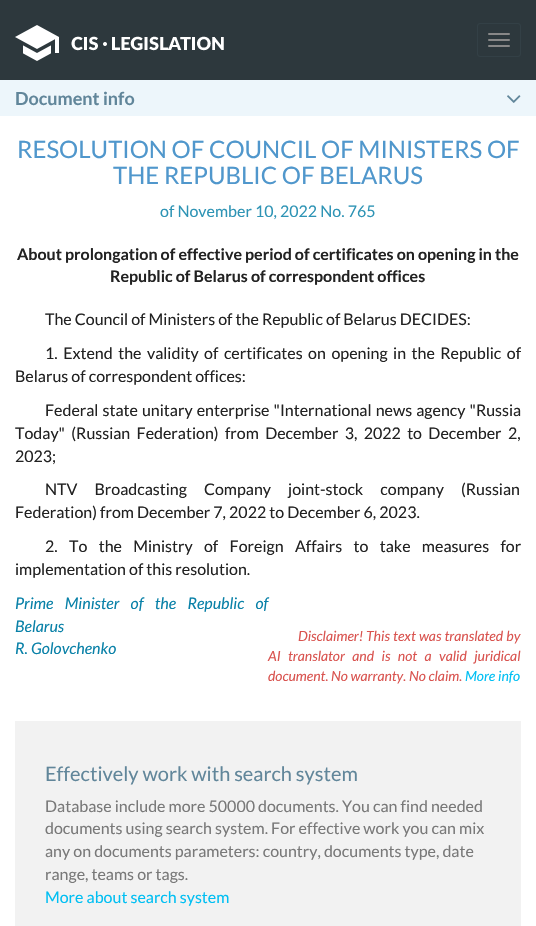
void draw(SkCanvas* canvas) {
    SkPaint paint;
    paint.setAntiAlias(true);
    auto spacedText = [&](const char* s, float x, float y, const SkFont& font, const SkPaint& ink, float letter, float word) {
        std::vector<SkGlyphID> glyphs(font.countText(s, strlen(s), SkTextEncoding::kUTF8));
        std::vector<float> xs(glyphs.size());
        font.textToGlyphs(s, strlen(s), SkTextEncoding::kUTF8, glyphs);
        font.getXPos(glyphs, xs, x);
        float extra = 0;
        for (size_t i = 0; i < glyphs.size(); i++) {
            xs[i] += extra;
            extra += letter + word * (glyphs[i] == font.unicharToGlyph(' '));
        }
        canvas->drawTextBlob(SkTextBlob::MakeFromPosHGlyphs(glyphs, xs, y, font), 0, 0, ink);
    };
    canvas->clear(0xFFFFFFFF);
    paint.setColor(0xFF2D383D);
    canvas->drawRect(SkRect::MakeXYWH(0, 0, 536, 80), paint);
    canvas->drawImageRect(SkImages::DeferredFromEncodedData(SkData::MakeFromFileName("img1.png")), SkRect::MakeXYWH(15, 25, 209, 36), SkSamplingOptions());
    paint.setStyle(SkPaint::kStroke_Style);
    paint.setStrokeWidth(1);
    paint.setColor(0xFF334046);
    canvas->drawRoundRect(SkRect::MakeXYWH(477.5f, 23.5f, 43, 33), 2.5f, 2.5f, paint);
    paint.setStyle(SkPaint::kFill_Style);
    paint.setColor(0xFF888888);
    canvas->drawRoundRect(SkRect::MakeXYWH(488, 33, 22, 2), 1, 1, paint);
    canvas->drawRoundRect(SkRect::MakeXYWH(488, 39, 22, 2), 1, 1, paint);
    canvas->drawRoundRect(SkRect::MakeXYWH(488, 45, 22, 2), 1, 1, paint);
    paint.setColor(0xFFEDF6FB);
    canvas->drawRect(SkRect::MakeXYWH(0, 80, 536, 36), paint);
    SkFont font1(fontMgr->matchFamilyStyle("Lato", SkFontStyle::Bold()), 18);
    font1.setSubpixel(true);
    paint.setColor(0xFF61869A);
    canvas->drawString("Document info", 15, 105, font1, paint);
    canvas->drawImageRect(SkImages::DeferredFromEncodedData(SkData::MakeFromFileName("img2.png")), SkRect::MakeXYWH(507, 95, 14, 8), SkSamplingOptions());
    SkFont font2(fontMgr->matchFamilyStyle("Lato", SkFontStyle::Normal()), 24);
    font2.setSubpixel(true);
    paint.setColor(0xFF5097CC);
    canvas->drawString("RESOLUTION OF COUNCIL OF MINISTERS OF", 17, 158, font2, paint);
    canvas->drawString("THE REPUBLIC OF BELARUS", 113, 184, font2, paint);
    SkFont font3(fontMgr->matchFamilyStyle("Lato", SkFontStyle::Normal()), 16);
    font3.setSubpixel(true);
    paint.setColor(0xFF2E94B5);
    canvas->drawString("of November 10, 2022 No. 765", 160, 217, font3, paint);
    SkFont font4(fontMgr->matchFamilyStyle("Lato", SkFontStyle::Bold()), 16);
    font4.setSubpixel(true);
    paint.setColor(0xFF222222);
    canvas->drawString("About prolongation of effective period of certificates on opening in the", 17, 260, font4, paint);
    canvas->drawString("Republic of Belarus of correspondent offices", 110, 282, font4, paint);
    canvas->drawString("The Council of Ministers of the Republic of Belarus DECIDES:", 45, 325, font3, paint);
    spacedText("1. Extend the validity of certificates on opening in the Republic of", 45, 359, font3, paint, 0, 2.4f);
    canvas->drawString("Belarus of correspondent offices:", 15, 382, font3, paint);
    spacedText("Federal state unitary enterprise \"International news agency \"Russia", 45, 416, font3, paint, 0, 1);
    spacedText("Today\" (Russian Federation) from December 3, 2022 to December 2,", 15, 439, font3, paint, 0, 3.25f);
    canvas->drawString("2023;", 15, 462, font3, paint);
    spacedText("NTV Broadcasting Company joint-stock company (Russian", 45, 495, font3, paint, 0, 14);
    canvas->drawString("Federation) from December 7, 2022 to December 6, 2023.", 15, 518, font3, paint);
    spacedText("2. To the Ministry of Foreign Affairs to take measures for", 45, 552, font3, paint, 0, 8.25f);
    canvas->drawString("implementation of this resolution.", 15, 575, font3, paint);
    SkFont font5(fontMgr->matchFamilyStyle("Lato", SkFontStyle::Italic()), 16);
    font5.setSubpixel(true);
    paint.setColor(0xFF0981A8);
    spacedText("Prime Minister of the Republic of", 15, 609, font5, paint, 0, 8.25f);
    canvas->drawString("Belarus", 15, 632, font5, paint);
    canvas->drawString("R. Golovchenko", 15, 654, font5, paint);
    SkFont font6(fontMgr->matchFamilyStyle("Lato", SkFontStyle::Italic()), 14);
    font6.setSubpixel(true);
    paint.setColor(0xFFD9534F);
    canvas->drawString("Disclaimer!", 298, 641, font6, paint);
    spacedText("This text was translated by", 366, 641, font6, paint, 0, 0.5f);
    spacedText("AI translator and is not a valid juridical", 268, 661, font6, paint, 0, 4.75f);
    canvas->drawString("document. No warranty. No claim.", 268, 681, font6, paint);
    paint.setColor(0xFF00BFF3);
    canvas->drawString("More info", 465, 681, font6, paint);
    paint.setColor(0xFFF2F2F2);
    canvas->drawRect(SkRect::MakeXYWH(15, 721, 506, 205), paint);
    SkFont font7(fontMgr->matchFamilyStyle("Lato", SkFontStyle::Normal()), 20);
    font7.setSubpixel(true);
    paint.setColor(0xFF61869A);
    canvas->drawString("Effectively work with search system", 45, 781, font7, paint);
    paint.setColor(0xFF797979);
    canvas->drawString("Database include more 50000 documents. You can find needed", 45, 812, font3, paint);
    canvas->drawString("documents using search system. For effective work you can mix", 45, 834, font3, paint);
    canvas->drawString("any on documents parameters: country, documents type, date", 45, 857, font3, paint);
    canvas->drawString("range, teams or tags.", 45, 880, font3, paint);
    paint.setColor(0xFF00BFF3);
    canvas->drawString("More about search system", 45, 903, font3, paint);
}
